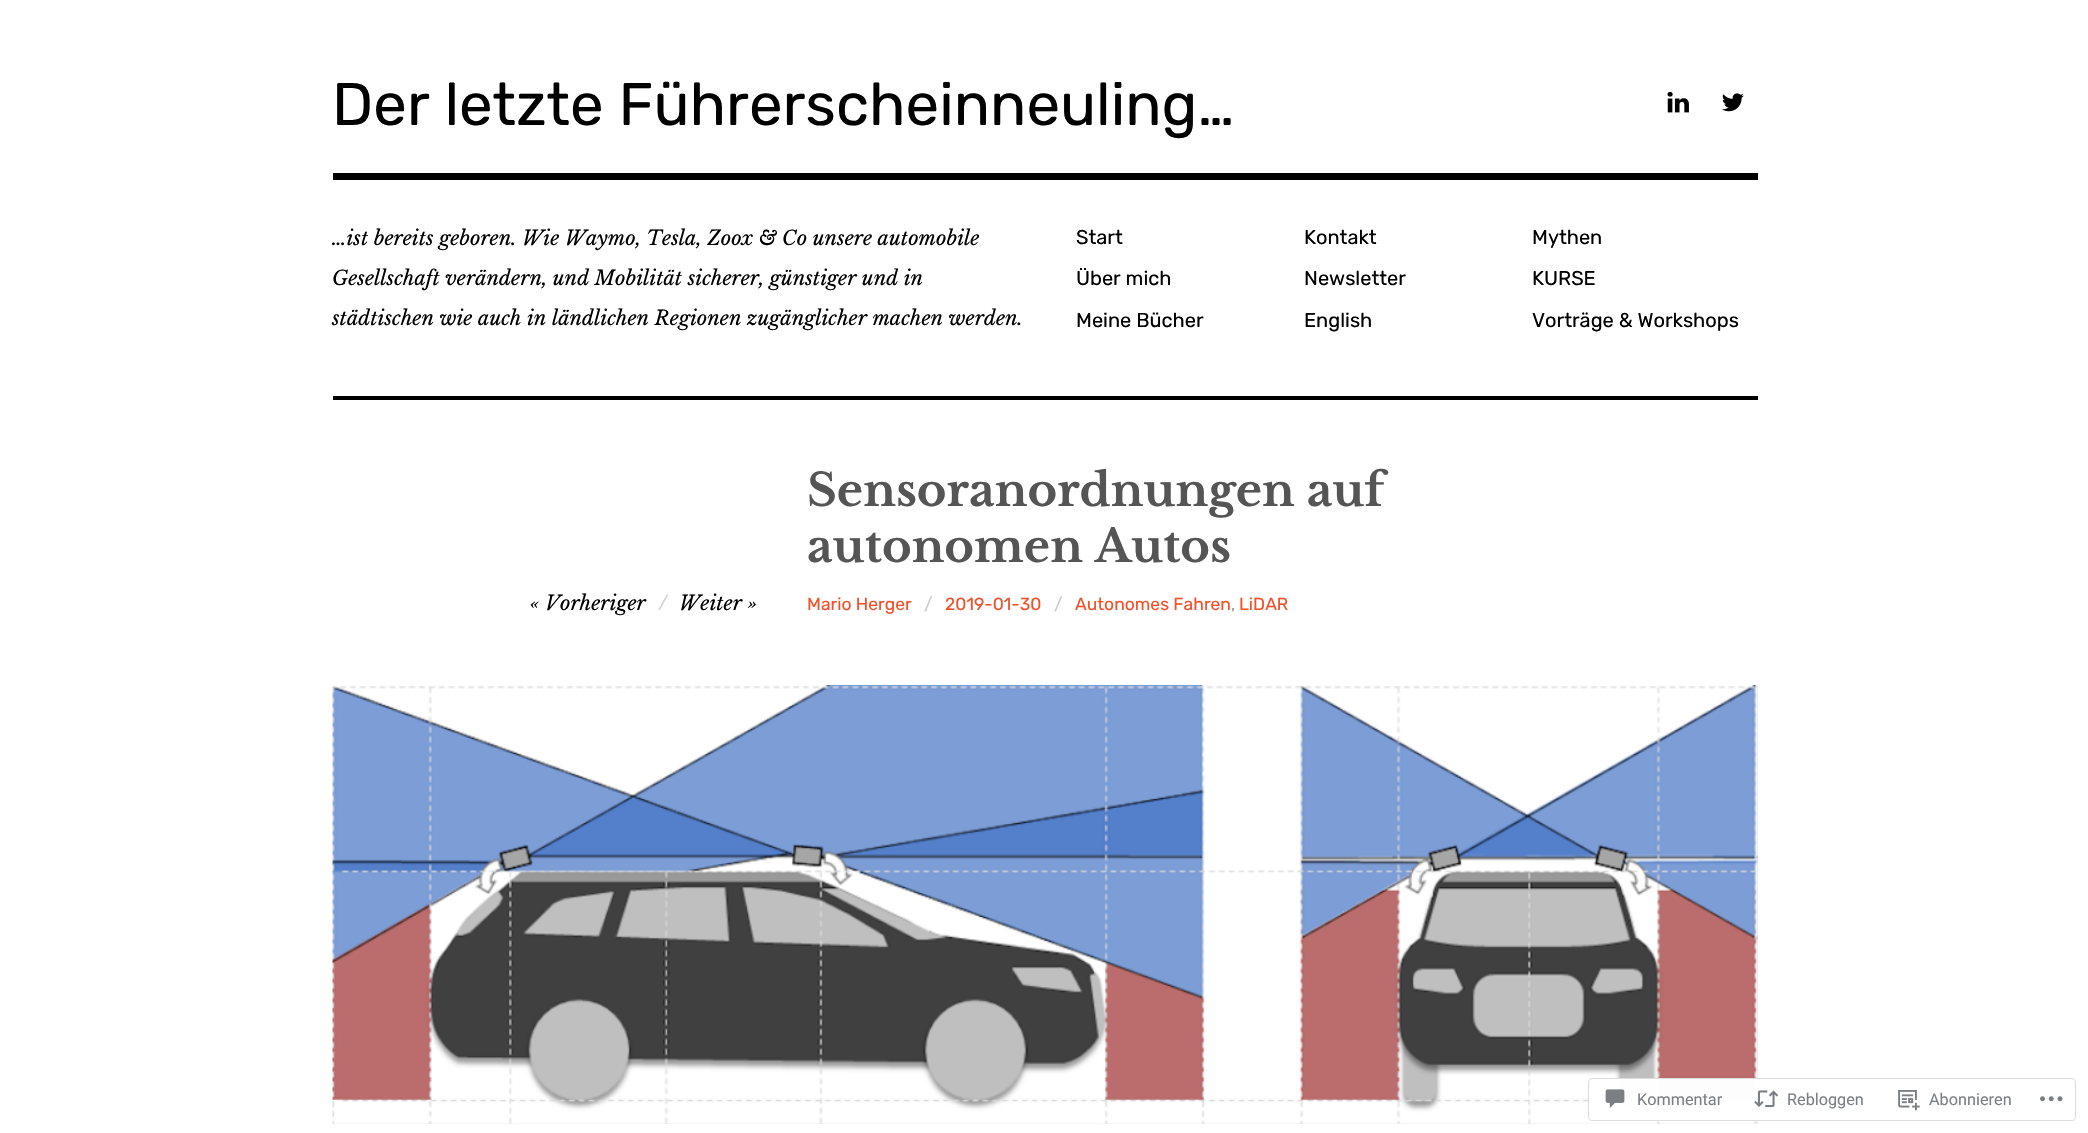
void draw(SkCanvas* canvas) {
    SkPaint paint;
    paint.setAntiAlias(true);
    canvas->clear(0xFFFFFFFF);
    paint.setColor(0xFF000000);
    canvas->drawRect(SkRect::MakeXYWH(333, 173, 1425, 7), paint);
    SkFont font1(fontMgr->matchFamilyStyle("Rubik", SkFontStyle::Normal()), 60);
    font1.setSubpixel(true);
    canvas->drawString("Der letzte Führerscheinneuling…", 332, 125, font1, paint);
    canvas->drawImageRect(SkImages::DeferredFromEncodedData(SkData::MakeFromFileName("img1.png")), SkRect::MakeXYWH(1667, 91, 22, 22), SkSamplingOptions());
    canvas->drawImageRect(SkImages::DeferredFromEncodedData(SkData::MakeFromFileName("img2.png")), SkRect::MakeXYWH(1722, 93, 22, 19), SkSamplingOptions());
    SkFont font2(fontMgr->matchFamilyStyle("Libre Baskerville", SkFontStyle::Italic()), 20);
    font2.setSubpixel(true);
    canvas->drawString("…ist bereits geboren. Wie Waymo, Tesla, Zoox & Co unsere automobile", 332, 245, font2, paint);
    canvas->drawString("Gesellschaft verändern, und Mobilität sicherer, günstiger und in", 332, 285, font2, paint);
    canvas->drawString("städtischen wie auch in ländlichen Regionen zugänglicher machen werden.", 332, 325, font2, paint);
    SkFont font3(fontMgr->matchFamilyStyle("Rubik", SkFontStyle::Normal()), 20);
    font3.setSubpixel(true);
    canvas->drawString("Start", 1076, 244, font3, paint);
    canvas->drawString("Über mich", 1076, 285, font3, paint);
    canvas->drawString("Meine Bücher", 1076, 327, font3, paint);
    canvas->drawString("Kontakt", 1304, 244, font3, paint);
    canvas->drawString("Newsletter", 1304, 285, font3, paint);
    canvas->drawString("English", 1304, 327, font3, paint);
    canvas->drawString("Mythen", 1532, 244, font3, paint);
    canvas->drawString("KURSE", 1532, 285, font3, paint);
    canvas->drawString("Vorträge & Workshops", 1532, 327, font3, paint);
    canvas->drawRect(SkRect::MakeXYWH(333, 396, 1425, 4), paint);
    SkFont font4(fontMgr->matchFamilyStyle("Libre Baskerville", SkFontStyle::Bold()), 45);
    font4.setSubpixel(true);
    paint.setColor(0xFF555555);
    canvas->drawString("Sensoranordnungen auf", 807, 506, font4, paint);
    canvas->drawString("autonomen Autos", 807, 562, font4, paint);
    paint.setColor(0xFF000000);
    canvas->drawString("« Vorheriger", 530, 610, font2, paint);
    paint.setColor(0xFFCCCCCC);
    canvas->drawString("/", 659, 610, font2, paint);
    paint.setColor(0xFF000000);
    canvas->drawString("Weiter »", 679, 610, font2, paint);
    SkFont font5(fontMgr->matchFamilyStyle("Rubik", SkFontStyle::Normal()), 17.5f);
    font5.setSubpixel(true);
    paint.setColor(0xFFF35029);
    canvas->drawString("Mario Herger", 807, 610, font5, paint);
    paint.setColor(0xFFCCCCCC);
    canvas->drawString("/", 924, 610, font5, paint);
    paint.setColor(0xFFF35029);
    canvas->drawString("2019-01-30", 945, 610, font5, paint);
    paint.setColor(0xFFCCCCCC);
    canvas->drawString("/", 1054, 610, font5, paint);
    paint.setColor(0xFFF35029);
    canvas->drawString("Autonomes Fahren", 1075, 610, font5, paint);
    paint.setColor(0xFF999999);
    canvas->drawString(",", 1231, 610, font5, paint);
    paint.setColor(0xFFF35029);
    canvas->drawString("LiDAR", 1239, 610, font5, paint);
    paint.setStyle(SkPaint::kStroke_Style);
    paint.setStrokeWidth(1);
    paint.setColor(0xFFDDDDDD);
    canvas->drawRect(SkRect::MakeXYWH(333.5f, 685.5f, 1424, 438), paint);
    canvas->drawImageRect(SkImages::DeferredFromEncodedData(SkData::MakeFromFileName("img3.png")), SkRect::MakeXYWH(332, 685, 1426, 439), SkSamplingOptions());
    paint.setStyle(SkPaint::kFill_Style);
    paint.setColor(0xFAFFFFFF);
    canvas->drawRoundRect(SkRect::MakeXYWH(1588, 1078, 488, 43), 4, 4, paint);
    paint.setStyle(SkPaint::kStroke_Style);
    paint.setColor(0xFADCDCDE);
    canvas->drawRoundRect(SkRect::MakeXYWH(1588.5f, 1078.5f, 487, 42), 3.5f, 3.5f, paint);
    canvas->drawImageRect(SkImages::DeferredFromEncodedData(SkData::MakeFromFileName("img4.png")), SkRect::MakeXYWH(1605, 1089, 20, 19), SkSamplingOptions());
    SkFont font6(fontMgr->matchFamilyStyle("Roboto", SkFontStyle::Normal()), 16.25f);
    font6.setSubpixel(true);
    paint.setStyle(SkPaint::kFill_Style);
    paint.setColor(0xFF7B7F84);
    canvas->drawString("Kommentar", 1637, 1105, font6, paint);
    canvas->drawImageRect(SkImages::DeferredFromEncodedData(SkData::MakeFromFileName("img5.png")), SkRect::MakeXYWH(1754, 1090, 25, 18), SkSamplingOptions());
    canvas->drawString("Rebloggen", 1787, 1105, font6, paint);
    canvas->drawImageRect(SkImages::DeferredFromEncodedData(SkData::MakeFromFileName("img6.png")), SkRect::MakeXYWH(1898, 1090, 22, 21), SkSamplingOptions());
    canvas->drawString("Abonnieren", 1929, 1105, font6, paint);
    canvas->drawImageRect(SkImages::DeferredFromEncodedData(SkData::MakeFromFileName("img7.png")), SkRect::MakeXYWH(2040, 1096, 23, 6), SkSamplingOptions());
}
